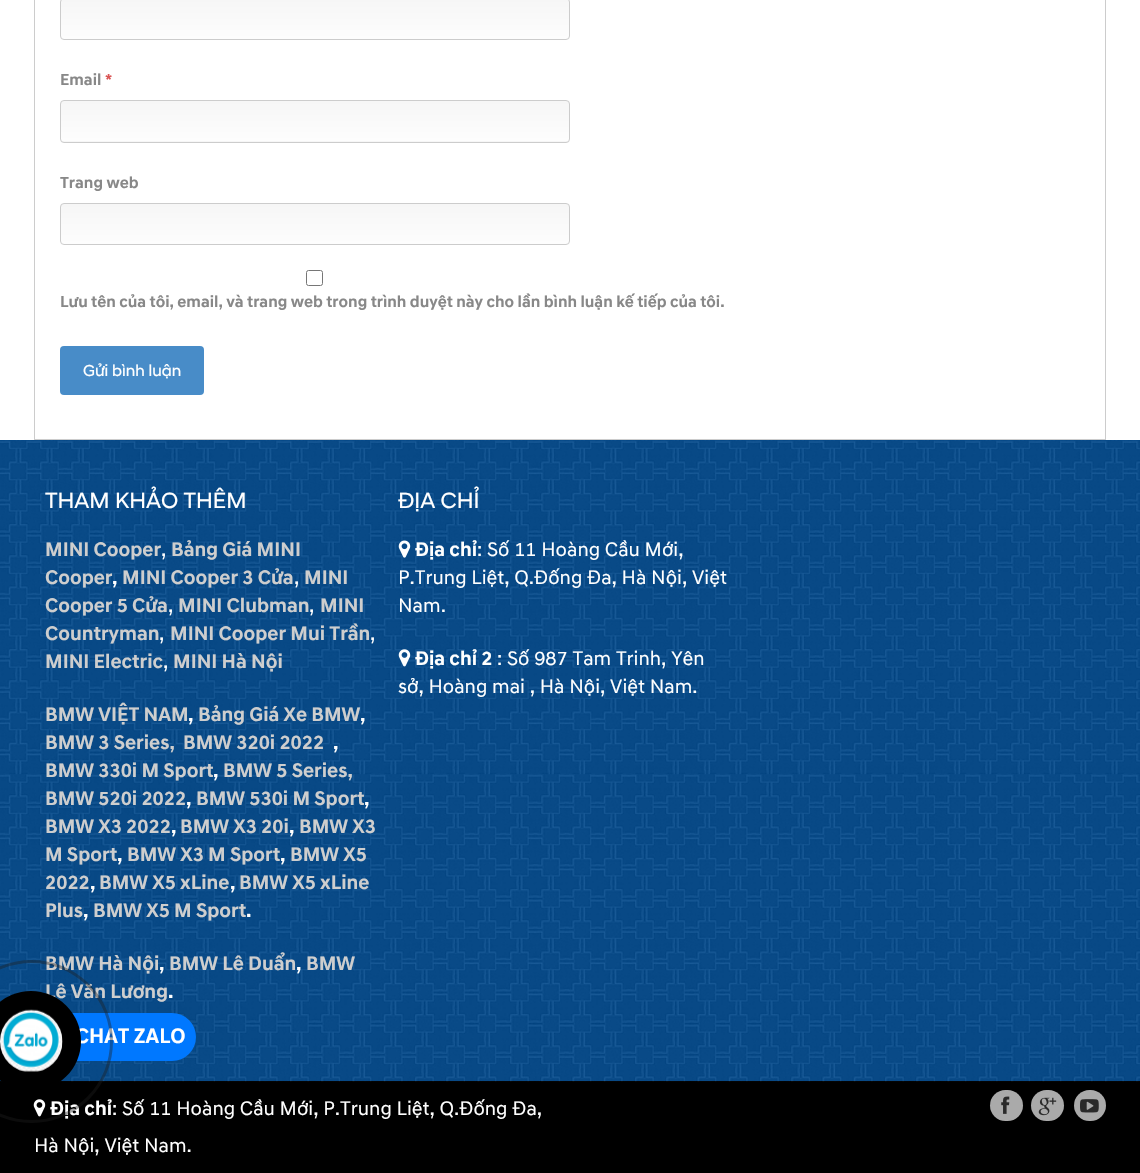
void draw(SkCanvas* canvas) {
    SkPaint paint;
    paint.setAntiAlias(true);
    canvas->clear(0xFFFFFFFF);
    paint.setStyle(SkPaint::kStroke_Style);
    paint.setStrokeWidth(1);
    paint.setColor(0xFFCCCCCC);
    canvas->drawRect(SkRect::MakeXYWH(34.5f, -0.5f, 1071, 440), paint);
    canvas->save();
    canvas->clipPath(SkPathBuilder().moveTo(64, -2).lineTo(566, -2).cubicTo(568, -2, 570, 0, 570, 2).lineTo(570, 36).cubicTo(570, 38, 568, 40, 566, 40).lineTo(64, 40).cubicTo(62, 40, 60, 38, 60, 36).lineTo(60, 2).cubicTo(60, 0, 62, -2, 64, -2).close().detach(), true);
    paint.setStyle(SkPaint::kFill_Style);
    {
        const SkColor colors[] = {0xFFF6F6F6, 0xFFFDFDFD};
        const float stops[] = {0, 1};
        const SkPoint ends[] = {{315, -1.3f}, {315, 39}};
        paint.setShader(SkGradientShader::MakeLinear(ends, colors, stops, 2, SkTileMode::kClamp));
        paint.setAlpha(255);
    }
    canvas->drawRect(SkRect::MakeXYWH(60, 0, 510, 39), paint);
    canvas->restore();
    paint.setStyle(SkPaint::kStroke_Style);
    paint.setShader(nullptr);
    paint.setColor(0xFFCCCCCC);
    canvas->drawRoundRect(SkRect::MakeXYWH(60.5f, -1.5f, 509, 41), 3.5f, 3.5f, paint);
    SkFont font1(fontMgr->matchFamilyStyle("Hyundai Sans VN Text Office", SkFontStyle::Bold()), 16.25f);
    font1.setSubpixel(true);
    paint.setStyle(SkPaint::kFill_Style);
    paint.setColor(0xFF888888);
    canvas->drawString("Email", 60, 85, font1, paint);
    paint.setColor(0xFFDA5454);
    canvas->drawString("*", 105, 85, font1, paint);
    canvas->save();
    canvas->clipPath(SkPathBuilder().moveTo(64, 100).lineTo(566, 100).cubicTo(568, 100, 570, 102, 570, 104).lineTo(570, 139).cubicTo(570, 141, 568, 143, 566, 143).lineTo(64, 143).cubicTo(62, 143, 60, 141, 60, 139).lineTo(60, 104).cubicTo(60, 102, 62, 100, 64, 100).close().detach(), true);
    {
        const SkColor colors[] = {0xFFF6F6F6, 0xFFFDFDFD};
        const float stops[] = {0, 1};
        const SkPoint ends[] = {{315, 101}, {315, 141}};
        paint.setShader(SkGradientShader::MakeLinear(ends, colors, stops, 2, SkTileMode::kClamp));
        paint.setAlpha(255);
    }
    canvas->drawRect(SkRect::MakeXYWH(60, 101, 510, 40), paint);
    {
        const SkColor colors[] = {0xFFF6F6F6, 0xFFFDFDFD};
        const float stops[] = {0, 1};
        const SkPoint ends[] = {{315, 141}, {315, 181}};
        paint.setShader(SkGradientShader::MakeLinear(ends, colors, stops, 2, SkTileMode::kClamp));
        paint.setAlpha(255);
    }
    canvas->drawRect(SkRect::MakeXYWH(60, 141, 510, 2), paint);
    canvas->restore();
    paint.setStyle(SkPaint::kStroke_Style);
    paint.setShader(nullptr);
    paint.setColor(0xFFCCCCCC);
    canvas->drawRoundRect(SkRect::MakeXYWH(60.5f, 100.5f, 509, 42), 3.5f, 3.5f, paint);
    paint.setStyle(SkPaint::kFill_Style);
    paint.setColor(0xFF888888);
    canvas->drawString("Trang web", 60, 188, font1, paint);
    canvas->save();
    canvas->clipPath(SkPathBuilder().moveTo(64, 203).lineTo(566, 203).cubicTo(568, 203, 570, 205, 570, 207).lineTo(570, 241).cubicTo(570, 243, 568, 245, 566, 245).lineTo(64, 245).cubicTo(62, 245, 60, 243, 60, 241).lineTo(60, 207).cubicTo(60, 205, 62, 203, 64, 203).close().detach(), true);
    {
        const SkColor colors[] = {0xFFF6F6F6, 0xFFFDFDFD};
        const float stops[] = {0, 1};
        const SkPoint ends[] = {{315, 204}, {315, 244}};
        paint.setShader(SkGradientShader::MakeLinear(ends, colors, stops, 2, SkTileMode::kClamp));
        paint.setAlpha(255);
    }
    canvas->drawRect(SkRect::MakeXYWH(60, 204, 510, 40), paint);
    canvas->restore();
    paint.setStyle(SkPaint::kStroke_Style);
    paint.setShader(nullptr);
    paint.setColor(0xFFCCCCCC);
    canvas->drawRoundRect(SkRect::MakeXYWH(60.5f, 203.5f, 509, 41), 3.5f, 3.5f, paint);
    paint.setColor(0xFF767676);
    canvas->drawRoundRect(SkRect::MakeXYWH(306.5f, 270.5f, 16, 15), 2, 2, paint);
    paint.setStyle(SkPaint::kFill_Style);
    paint.setColor(0xFF888888);
    canvas->drawString("Lưu tên của tôi, email, và trang web trong trình duyệt này cho lần bình luận kế tiếp của tôi.", 60, 307, font1, paint);
    paint.setColor(0xFF488CC8);
    canvas->drawRoundRect(SkRect::MakeXYWH(60, 346, 144, 49), 4, 4, paint);
    SkFont font2(fontMgr->matchFamilyStyle("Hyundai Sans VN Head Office", SkFontStyle::Normal()), 16.25f);
    font2.setSubpixel(true);
    paint.setColor(0xFFFFFFFF);
    canvas->drawString("Gửi bình luận", 83, 376, font2, paint);
    paint.setColor(0xFF000000);
    canvas->drawRect(SkRect::MakeXYWH(0, 1081, 1140, 92), paint);
    paint.setColor(0xFF00498E);
    canvas->drawRect(SkRect::MakeXYWH(0, 440, 1140, 641), paint);
    canvas->drawImageRect(SkImages::DeferredFromEncodedData(SkData::MakeFromFileName("img1.png")), SkRect::MakeXYWH(0, 440, 1140, 642), SkSamplingOptions());
    SkFont font3(fontMgr->matchFamilyStyle("Hyundai Sans VN Head Office", SkFontStyle::Normal()), 22.5f);
    font3.setSubpixel(true);
    paint.setColor(0xFFFFFFFF);
    canvas->drawString("THAM KHẢO THÊM", 45, 508, font3, paint);
    SkFont font4(fontMgr->matchFamilyStyle("Hyundai Sans VN Text Office", SkFontStyle::Bold()), 20);
    font4.setSubpixel(true);
    paint.setColor(0xFFCECECE);
    canvas->drawString("MINI Cooper", 45, 556, font4, paint);
    SkFont font5(fontMgr->matchFamilyStyle("Hyundai Sans VN Text Office", SkFontStyle::Normal()), 20);
    font5.setSubpixel(true);
    paint.setColor(0xFFFFFFFF);
    canvas->drawString(",", 161, 556, font5, paint);
    paint.setColor(0xFFCECECE);
    canvas->drawString("Bảng Giá MINI", 171, 556, font4, paint);
    canvas->drawString("Cooper", 45, 584, font4, paint);
    paint.setColor(0xFFFFFFFF);
    canvas->drawString(",", 112, 584, font4, paint);
    paint.setColor(0xFFCECECE);
    canvas->drawString("MINI Cooper 3 Cửa", 122, 584, font4, paint);
    paint.setColor(0xFFFFFFFF);
    canvas->drawString(",", 294, 584, font5, paint);
    paint.setColor(0xFFCECECE);
    canvas->drawString("MINI", 304, 584, font4, paint);
    canvas->drawString("Cooper 5 Cửa", 45, 612, font4, paint);
    paint.setColor(0xFFFFFFFF);
    canvas->drawString(",", 168, 612, font5, paint);
    paint.setColor(0xFFCECECE);
    canvas->drawString("MINI Clubman", 178, 612, font4, paint);
    paint.setColor(0xFFFFFFFF);
    canvas->drawString(",", 309, 612, font5, paint);
    paint.setColor(0xFFCECECE);
    canvas->drawString("MINI", 320, 612, font4, paint);
    canvas->drawString("Countryman", 45, 640, font4, paint);
    paint.setColor(0xFFFFFFFF);
    canvas->drawString(",", 159, 640, font5, paint);
    paint.setColor(0xFFCECECE);
    canvas->drawString("MINI Cooper Mui Trần", 170, 640, font4, paint);
    paint.setColor(0xFFFFFFFF);
    canvas->drawString(",", 370, 640, font5, paint);
    paint.setColor(0xFFCECECE);
    canvas->drawString("MINI Electric", 45, 668, font4, paint);
    paint.setColor(0xFFFFFFFF);
    canvas->drawString(",", 163, 668, font5, paint);
    paint.setColor(0xFFCECECE);
    canvas->drawString("MINI Hà Nội", 173, 668, font4, paint);
    canvas->drawString("BMW VIỆT NAM", 45, 721, font4, paint);
    paint.setColor(0xFFFFFFFF);
    canvas->drawString(",", 188, 721, font4, paint);
    paint.setColor(0xFFCECECE);
    canvas->drawString("Bảng Giá Xe BMW", 198, 721, font4, paint);
    paint.setColor(0xFFFFFFFF);
    canvas->drawString(",", 360, 721, font4, paint);
    paint.setColor(0xFFCECECE);
    canvas->drawString("BMW 3 Series,", 45, 749, font4, paint);
    canvas->drawString("BMW 320i 2022", 183, 749, font4, paint);
    paint.setColor(0xFFFFFFFF);
    canvas->drawString(",", 333, 749, font4, paint);
    paint.setColor(0xFFCECECE);
    canvas->drawString("BMW 330i M Sport", 45, 777, font4, paint);
    paint.setColor(0xFFFFFFFF);
    canvas->drawString(",", 213, 777, font4, paint);
    paint.setColor(0xFFCECECE);
    canvas->drawString("BMW 5 Series,", 223, 777, font4, paint);
    canvas->drawString("BMW 520i 2022", 45, 805, font4, paint);
    paint.setColor(0xFFFFFFFF);
    canvas->drawString(",", 186, 805, font4, paint);
    paint.setColor(0xFFCECECE);
    canvas->drawString("BMW 530i M Sport", 196, 805, font4, paint);
    paint.setColor(0xFFFFFFFF);
    canvas->drawString(",", 364, 805, font4, paint);
    paint.setColor(0xFFCECECE);
    canvas->drawString("BMW X3 2022", 45, 833, font4, paint);
    paint.setColor(0xFFFFFFFF);
    canvas->drawString(",", 171, 833, font4, paint);
    paint.setColor(0xFFCECECE);
    canvas->drawString("BMW X3 20i", 180, 833, font4, paint);
    paint.setColor(0xFFFFFFFF);
    canvas->drawString(",", 289, 833, font4, paint);
    paint.setColor(0xFFCECECE);
    canvas->drawString("BMW X3", 299, 833, font4, paint);
    canvas->drawString("M Sport", 45, 861, font4, paint);
    paint.setColor(0xFFFFFFFF);
    canvas->drawString(",", 117, 861, font4, paint);
    paint.setColor(0xFFCECECE);
    canvas->drawString("BMW X3 M Sport", 127, 861, font4, paint);
    paint.setColor(0xFFFFFFFF);
    canvas->drawString(",", 280, 861, font4, paint);
    paint.setColor(0xFFCECECE);
    canvas->drawString("BMW X5", 290, 861, font4, paint);
    canvas->drawString("2022", 45, 889, font4, paint);
    paint.setColor(0xFFFFFFFF);
    canvas->drawString(",", 90, 889, font4, paint);
    paint.setColor(0xFFCECECE);
    canvas->drawString("BMW X5 xLine", 99, 889, font4, paint);
    paint.setColor(0xFFFFFFFF);
    canvas->drawString(",", 230, 889, font4, paint);
    paint.setColor(0xFFCECECE);
    canvas->drawString("BMW X5 xLine", 239, 889, font4, paint);
    canvas->drawString("Plus", 45, 917, font4, paint);
    paint.setColor(0xFFFFFFFF);
    canvas->drawString(",", 83, 917, font4, paint);
    paint.setColor(0xFFCECECE);
    canvas->drawString("BMW X5 M Sport", 93, 917, font4, paint);
    paint.setColor(0xFFFFFFFF);
    canvas->drawString(".", 246, 917, font4, paint);
    paint.setColor(0xFFCECECE);
    canvas->drawString("BMW Hà Nội", 45, 970, font4, paint);
    paint.setColor(0xFFFFFFFF);
    canvas->drawString(",", 159, 970, font4, paint);
    paint.setColor(0xFFCECECE);
    canvas->drawString("BMW Lê Duẩn", 169, 970, font4, paint);
    paint.setColor(0xFFFFFFFF);
    canvas->drawString(",", 296, 970, font4, paint);
    paint.setColor(0xFFCECECE);
    canvas->drawString("BMW", 306, 970, font4, paint);
    canvas->drawString("Lê Văn Lương", 45, 998, font4, paint);
    paint.setColor(0xFFFFFFFF);
    canvas->drawString(".", 168, 998, font4, paint);
    canvas->drawString("ĐỊA CHỈ", 398, 508, font3, paint);
    canvas->drawImageRect(SkImages::DeferredFromEncodedData(SkData::MakeFromFileName("img2.png")), SkRect::MakeXYWH(398, 540, 13, 18), SkSamplingOptions());
    canvas->drawString("Địa chỉ", 415, 556, font4, paint);
    canvas->drawString(": Số 11 Hoàng Cầu Mới,", 477, 556, font5, paint);
    canvas->drawString("P.Trung Liệt, Q.Đống Đa, Hà Nội, Việt", 398, 584, font5, paint);
    canvas->drawString("Nam.", 398, 612, font5, paint);
    canvas->drawImageRect(SkImages::DeferredFromEncodedData(SkData::MakeFromFileName("img3.png")), SkRect::MakeXYWH(398, 649, 13, 18), SkSamplingOptions());
    canvas->drawString("Địa chỉ 2", 415, 665, font4, paint);
    canvas->drawString(": Số 987 Tam Trinh, Yên", 497, 665, font5, paint);
    canvas->drawString("sở, Hoàng mai , Hà Nội, Việt Nam.", 398, 693, font5, paint);
    canvas->drawImageRect(SkImages::DeferredFromEncodedData(SkData::MakeFromFileName("img4.png")), SkRect::MakeXYWH(33, 1099, 13, 18), SkSamplingOptions());
    canvas->drawString("Địa chỉ", 50, 1115, font4, paint);
    canvas->drawString(": Số 11 Hoàng Cầu Mới, P.Trung Liệt, Q.Đống Đa,", 112, 1115, font5, paint);
    canvas->drawString("Hà Nội, Việt Nam.", 34, 1152, font5, paint);
    paint.setColor(0xFFAAAAAA);
    canvas->drawRoundRect(SkRect::MakeXYWH(990, 1090, 33, 31), 15.5f, 15.5f, paint);
    canvas->drawImageRect(SkImages::DeferredFromEncodedData(SkData::MakeFromFileName("img5.png")), SkRect::MakeXYWH(1001, 1096, 9, 18), SkSamplingOptions());
    canvas->drawRoundRect(SkRect::MakeXYWH(1031, 1090, 33, 31), 15.5f, 15.5f, paint);
    canvas->drawImageRect(SkImages::DeferredFromEncodedData(SkData::MakeFromFileName("img6.png")), SkRect::MakeXYWH(1038, 1097, 19, 19), SkSamplingOptions());
    canvas->drawRoundRect(SkRect::MakeXYWH(1074, 1090, 32, 31), 15.5f, 15.5f, paint);
    canvas->drawImageRect(SkImages::DeferredFromEncodedData(SkData::MakeFromFileName("img7.png")), SkRect::MakeXYWH(1080, 1099, 19, 14), SkSamplingOptions());
    paint.setColor(0xFF0078FF);
    canvas->drawRoundRect(SkRect::MakeXYWH(-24, 1013, 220, 48), 24, 24, paint);
    SkFont font6(fontMgr->matchFamilyStyle("Hyundai Sans VN Text Office", SkFontStyle::Bold()), 21.25f);
    font6.setSubpixel(true);
    paint.setColor(0xFFFFFFFF);
    canvas->drawString("CHAT ZALO", 75, 1043, font6, paint);
    paint.setStyle(SkPaint::kStroke_Style);
    paint.setStrokeWidth(3);
    paint.setColor(0x661E1E1E);
    canvas->drawCircle(31.5f, 1041.5f, 80, paint);
    paint.setStyle(SkPaint::kFill_Style);
    paint.setColor(0xFF000000);
    canvas->drawCircle(31, 1041, 50, paint);
    canvas->drawImageRect(SkImages::DeferredFromEncodedData(SkData::MakeFromFileName("img8.png")), SkRect::MakeXYWH(0, 1009, 63, 63), SkSamplingOptions());
}
